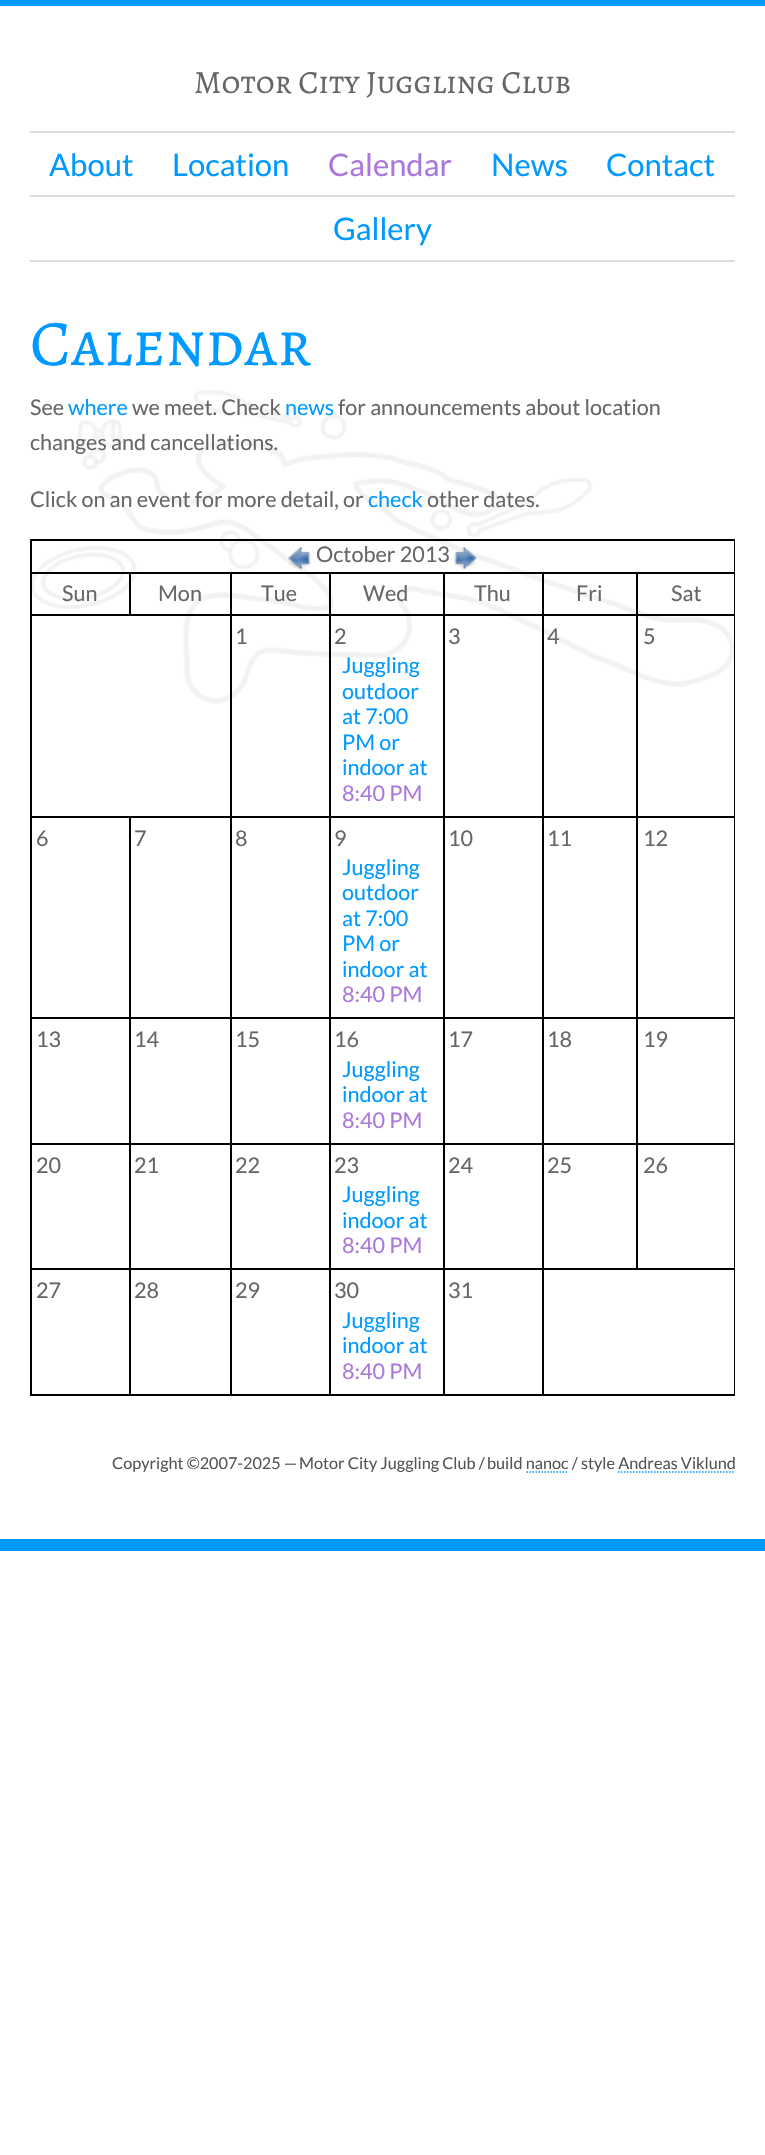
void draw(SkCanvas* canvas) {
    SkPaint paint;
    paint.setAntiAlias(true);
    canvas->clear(0xFFFFFFFF);
    paint.setColor(0xFF0099FF);
    canvas->drawRect(SkRect::MakeXYWH(0, 0, 765, 6), paint);
    canvas->drawRect(SkRect::MakeXYWH(0, 1539, 765, 12), paint);
    SkFont font1(fontMgr->matchFamilyStyle("Alegreya SC", SkFontStyle::Normal()), 32.4f);
    font1.setSubpixel(true);
    paint.setColor(0xFF666666);
    canvas->drawString("Motor City Juggling Club", 194, 93, font1, paint);
    paint.setColor(0xFFDDDDDD);
    canvas->drawRect(SkRect::MakeXYWH(30, 131, 705, 2), paint);
    canvas->drawRect(SkRect::MakeXYWH(30, 195, 705, 2), paint);
    SkFont font2(fontMgr->matchFamilyStyle("Lato", SkFontStyle::Normal()), 31);
    font2.setSubpixel(true);
    paint.setColor(0xFF0099FF);
    canvas->drawString("About", 49, 176, font2, paint);
    canvas->drawString("Location", 172, 176, font2, paint);
    paint.setColor(0xFFAA77DD);
    canvas->drawString("Calendar", 328, 176, font2, paint);
    paint.setColor(0xFF0099FF);
    canvas->drawString("News", 491, 176, font2, paint);
    canvas->drawString("Contact", 606, 176, font2, paint);
    paint.setColor(0xFFDDDDDD);
    canvas->drawRect(SkRect::MakeXYWH(30, 260, 705, 2), paint);
    paint.setColor(0xFF0099FF);
    canvas->drawString("Gallery", 333, 240, font2, paint);
    SkFont font3(fontMgr->matchFamilyStyle("Alegreya SC", SkFontStyle::Normal()), 65);
    font3.setSubpixel(true);
    canvas->drawString("Calendar", 30, 365, font3, paint);
    canvas->drawImageRect(SkImages::DeferredFromEncodedData(SkData::MakeFromFileName("img1.png")), SkRect::MakeXYWH(32, 390, 702, 314), SkSamplingOptions());
    SkFont font4(fontMgr->matchFamilyStyle("Lato", SkFontStyle::Normal()), 21.6f);
    font4.setSubpixel(true);
    paint.setColor(0xFF666666);
    canvas->drawString("See", 30, 415, font4, paint);
    paint.setColor(0xFF0099FF);
    canvas->drawString("where", 68, 415, font4, paint);
    paint.setColor(0xFF666666);
    canvas->drawString("we meet. Check", 132, 415, font4, paint);
    paint.setColor(0xFF0099FF);
    canvas->drawString("news", 285, 415, font4, paint);
    paint.setColor(0xFF666666);
    canvas->drawString("for announcements about location", 338, 415, font4, paint);
    canvas->drawString("changes and cancellations.", 30, 450, font4, paint);
    canvas->drawString("Click on an event for more detail, or", 30, 507, font4, paint);
    paint.setColor(0xFF0099FF);
    canvas->drawString("check", 368, 507, font4, paint);
    paint.setColor(0xFF666666);
    canvas->drawString("other dates.", 427, 507, font4, paint);
    paint.setColor(0xFF000000);
    canvas->drawRect(SkRect::MakeXYWH(30, 539, 705, 2), paint);
    canvas->drawRect(SkRect::MakeXYWH(734, 539, 1, 856), paint);
    canvas->drawRect(SkRect::MakeXYWH(30, 1394, 705, 2), paint);
    canvas->drawRect(SkRect::MakeXYWH(30, 539, 2, 856), paint);
    canvas->drawImageRect(SkImages::DeferredFromEncodedData(SkData::MakeFromFileName("img2.png")), SkRect::MakeXYWH(288, 547, 23, 22), SkSamplingOptions());
    paint.setColor(0xFF666666);
    canvas->drawString("October 2013", 316, 562, font4, paint);
    canvas->drawImageRect(SkImages::DeferredFromEncodedData(SkData::MakeFromFileName("img3.png")), SkRect::MakeXYWH(454, 547, 23, 22), SkSamplingOptions());
    paint.setColor(0xFF000000);
    canvas->drawRect(SkRect::MakeXYWH(636, 572, 99, 2), paint);
    canvas->drawRect(SkRect::MakeXYWH(636, 614, 99, 2), paint);
    canvas->drawRect(SkRect::MakeXYWH(636, 816, 99, 2), paint);
    canvas->drawRect(SkRect::MakeXYWH(636, 1017, 99, 2), paint);
    canvas->drawRect(SkRect::MakeXYWH(636, 1143, 99, 2), paint);
    canvas->drawRect(SkRect::MakeXYWH(542, 1268, 193, 2), paint);
    canvas->drawRect(SkRect::MakeXYWH(636, 1143, 2, 126), paint);
    canvas->drawRect(SkRect::MakeXYWH(542, 1143, 96, 2), paint);
    canvas->drawRect(SkRect::MakeXYWH(636, 1017, 2, 128), paint);
    canvas->drawRect(SkRect::MakeXYWH(542, 1017, 96, 2), paint);
    canvas->drawRect(SkRect::MakeXYWH(636, 816, 2, 203), paint);
    canvas->drawRect(SkRect::MakeXYWH(542, 816, 96, 2), paint);
    canvas->drawRect(SkRect::MakeXYWH(636, 614, 2, 204), paint);
    canvas->drawRect(SkRect::MakeXYWH(542, 614, 96, 2), paint);
    canvas->drawRect(SkRect::MakeXYWH(636, 572, 2, 43), paint);
    canvas->drawRect(SkRect::MakeXYWH(542, 572, 96, 2), paint);
    canvas->drawRect(SkRect::MakeXYWH(542, 1268, 2, 127), paint);
    canvas->drawRect(SkRect::MakeXYWH(443, 1268, 100, 2), paint);
    canvas->drawRect(SkRect::MakeXYWH(542, 1143, 2, 126), paint);
    canvas->drawRect(SkRect::MakeXYWH(443, 1143, 100, 2), paint);
    canvas->drawRect(SkRect::MakeXYWH(542, 1017, 2, 128), paint);
    canvas->drawRect(SkRect::MakeXYWH(443, 1017, 100, 2), paint);
    canvas->drawRect(SkRect::MakeXYWH(542, 816, 2, 203), paint);
    canvas->drawRect(SkRect::MakeXYWH(443, 816, 100, 2), paint);
    canvas->drawRect(SkRect::MakeXYWH(542, 614, 2, 204), paint);
    canvas->drawRect(SkRect::MakeXYWH(443, 614, 100, 2), paint);
    canvas->drawRect(SkRect::MakeXYWH(542, 572, 2, 43), paint);
    canvas->drawRect(SkRect::MakeXYWH(443, 572, 100, 2), paint);
    canvas->drawRect(SkRect::MakeXYWH(443, 1268, 2, 127), paint);
    canvas->drawRect(SkRect::MakeXYWH(329, 1268, 115, 2), paint);
    canvas->drawRect(SkRect::MakeXYWH(443, 1143, 2, 126), paint);
    canvas->drawRect(SkRect::MakeXYWH(329, 1143, 115, 2), paint);
    canvas->drawRect(SkRect::MakeXYWH(443, 1017, 2, 128), paint);
    canvas->drawRect(SkRect::MakeXYWH(329, 1017, 115, 2), paint);
    canvas->drawRect(SkRect::MakeXYWH(443, 816, 2, 203), paint);
    canvas->drawRect(SkRect::MakeXYWH(329, 816, 115, 2), paint);
    canvas->drawRect(SkRect::MakeXYWH(443, 614, 2, 204), paint);
    canvas->drawRect(SkRect::MakeXYWH(329, 614, 115, 2), paint);
    canvas->drawRect(SkRect::MakeXYWH(443, 572, 2, 43), paint);
    canvas->drawRect(SkRect::MakeXYWH(329, 572, 115, 2), paint);
    canvas->drawRect(SkRect::MakeXYWH(329, 1268, 2, 127), paint);
    canvas->drawRect(SkRect::MakeXYWH(230, 1268, 100, 2), paint);
    canvas->drawRect(SkRect::MakeXYWH(329, 1143, 2, 126), paint);
    canvas->drawRect(SkRect::MakeXYWH(230, 1143, 100, 2), paint);
    canvas->drawRect(SkRect::MakeXYWH(329, 1017, 2, 128), paint);
    canvas->drawRect(SkRect::MakeXYWH(230, 1017, 100, 2), paint);
    canvas->drawRect(SkRect::MakeXYWH(329, 816, 2, 203), paint);
    canvas->drawRect(SkRect::MakeXYWH(230, 816, 100, 2), paint);
    canvas->drawRect(SkRect::MakeXYWH(329, 614, 2, 204), paint);
    canvas->drawRect(SkRect::MakeXYWH(230, 614, 100, 2), paint);
    canvas->drawRect(SkRect::MakeXYWH(329, 572, 2, 43), paint);
    canvas->drawRect(SkRect::MakeXYWH(230, 572, 100, 2), paint);
    canvas->drawRect(SkRect::MakeXYWH(230, 1268, 2, 127), paint);
    canvas->drawRect(SkRect::MakeXYWH(129, 1268, 102, 2), paint);
    canvas->drawRect(SkRect::MakeXYWH(230, 1143, 2, 126), paint);
    canvas->drawRect(SkRect::MakeXYWH(129, 1143, 102, 2), paint);
    canvas->drawRect(SkRect::MakeXYWH(230, 1017, 2, 128), paint);
    canvas->drawRect(SkRect::MakeXYWH(129, 1017, 102, 2), paint);
    canvas->drawRect(SkRect::MakeXYWH(230, 816, 2, 203), paint);
    canvas->drawRect(SkRect::MakeXYWH(129, 816, 102, 2), paint);
    canvas->drawRect(SkRect::MakeXYWH(230, 614, 2, 204), paint);
    canvas->drawRect(SkRect::MakeXYWH(30, 614, 201, 2), paint);
    canvas->drawRect(SkRect::MakeXYWH(230, 572, 2, 43), paint);
    canvas->drawRect(SkRect::MakeXYWH(129, 572, 102, 2), paint);
    canvas->drawRect(SkRect::MakeXYWH(129, 572, 2, 43), paint);
    canvas->drawRect(SkRect::MakeXYWH(30, 572, 101, 2), paint);
    paint.setColor(0xFF666666);
    canvas->drawString("Sun", 62, 601, font4, paint);
    canvas->drawString("Mon", 158, 601, font4, paint);
    canvas->drawString("Tue", 261, 601, font4, paint);
    canvas->drawString("Wed", 363, 601, font4, paint);
    canvas->drawString("Thu", 474, 601, font4, paint);
    canvas->drawString("Fri", 576, 601, font4, paint);
    canvas->drawString("Sat", 671, 601, font4, paint);
    canvas->drawString("1", 235, 644, font4, paint);
    canvas->drawString("2", 334, 644, font4, paint);
    paint.setColor(0xFF0099FF);
    canvas->drawString("Juggling", 342, 673, font4, paint);
    canvas->drawString("outdoor", 342, 699, font4, paint);
    canvas->drawString("at 7:00", 342, 724, font4, paint);
    canvas->drawString("PM or", 342, 750, font4, paint);
    canvas->drawString("indoor at", 342, 775, font4, paint);
    paint.setColor(0xFFAA77DD);
    canvas->drawString("8:40 PM", 342, 801, font4, paint);
    paint.setColor(0xFF666666);
    canvas->drawString("3", 448, 644, font4, paint);
    canvas->drawString("4", 547, 644, font4, paint);
    canvas->drawString("5", 643, 644, font4, paint);
    paint.setColor(0xFF000000);
    canvas->drawRect(SkRect::MakeXYWH(129, 1268, 2, 127), paint);
    canvas->drawRect(SkRect::MakeXYWH(30, 1268, 101, 2), paint);
    canvas->drawRect(SkRect::MakeXYWH(129, 1143, 2, 126), paint);
    canvas->drawRect(SkRect::MakeXYWH(30, 1143, 101, 2), paint);
    canvas->drawRect(SkRect::MakeXYWH(129, 1017, 2, 128), paint);
    canvas->drawRect(SkRect::MakeXYWH(30, 1017, 101, 2), paint);
    canvas->drawRect(SkRect::MakeXYWH(129, 816, 2, 203), paint);
    canvas->drawRect(SkRect::MakeXYWH(30, 816, 101, 2), paint);
    paint.setColor(0xFF666666);
    canvas->drawString("6", 36, 846, font4, paint);
    canvas->drawString("7", 134, 846, font4, paint);
    canvas->drawString("8", 235, 846, font4, paint);
    canvas->drawString("9", 334, 846, font4, paint);
    paint.setColor(0xFF0099FF);
    canvas->drawString("Juggling", 342, 875, font4, paint);
    canvas->drawString("outdoor", 342, 900, font4, paint);
    canvas->drawString("at 7:00", 342, 926, font4, paint);
    canvas->drawString("PM or", 342, 951, font4, paint);
    canvas->drawString("indoor at", 342, 977, font4, paint);
    paint.setColor(0xFFAA77DD);
    canvas->drawString("8:40 PM", 342, 1002, font4, paint);
    paint.setColor(0xFF666666);
    canvas->drawString("10", 448, 846, font4, paint);
    canvas->drawString("11", 547, 846, font4, paint);
    canvas->drawString("12", 643, 846, font4, paint);
    canvas->drawString("13", 36, 1047, font4, paint);
    canvas->drawString("14", 134, 1047, font4, paint);
    canvas->drawString("15", 235, 1047, font4, paint);
    canvas->drawString("16", 334, 1047, font4, paint);
    paint.setColor(0xFF0099FF);
    canvas->drawString("Juggling", 342, 1077, font4, paint);
    canvas->drawString("indoor at", 342, 1102, font4, paint);
    paint.setColor(0xFFAA77DD);
    canvas->drawString("8:40 PM", 342, 1128, font4, paint);
    paint.setColor(0xFF666666);
    canvas->drawString("17", 448, 1047, font4, paint);
    canvas->drawString("18", 547, 1047, font4, paint);
    canvas->drawString("19", 643, 1047, font4, paint);
    canvas->drawString("20", 36, 1173, font4, paint);
    canvas->drawString("21", 134, 1173, font4, paint);
    canvas->drawString("22", 235, 1173, font4, paint);
    canvas->drawString("23", 334, 1173, font4, paint);
    paint.setColor(0xFF0099FF);
    canvas->drawString("Juggling", 342, 1202, font4, paint);
    canvas->drawString("indoor at", 342, 1228, font4, paint);
    paint.setColor(0xFFAA77DD);
    canvas->drawString("8:40 PM", 342, 1253, font4, paint);
    paint.setColor(0xFF666666);
    canvas->drawString("24", 448, 1173, font4, paint);
    canvas->drawString("25", 547, 1173, font4, paint);
    canvas->drawString("26", 643, 1173, font4, paint);
    canvas->drawString("27", 36, 1298, font4, paint);
    canvas->drawString("28", 134, 1298, font4, paint);
    canvas->drawString("29", 235, 1298, font4, paint);
    canvas->drawString("30", 334, 1298, font4, paint);
    paint.setColor(0xFF0099FF);
    canvas->drawString("Juggling", 342, 1328, font4, paint);
    canvas->drawString("indoor at", 342, 1353, font4, paint);
    paint.setColor(0xFFAA77DD);
    canvas->drawString("8:40 PM", 342, 1379, font4, paint);
    paint.setColor(0xFF666666);
    canvas->drawString("31", 448, 1298, font4, paint);
    SkFont font5(fontMgr->matchFamilyStyle("Lato", SkFontStyle::Normal()), 16.25f);
    font5.setSubpixel(true);
    paint.setColor(0xFF555555);
    canvas->drawString("Copyright ©2007-2025 —", 112, 1469, font5, paint);
    canvas->drawString("Motor City Juggling Club /", 299, 1469, font5, paint);
    canvas->drawString("build nanoc / style Andreas Viklund", 487, 1469, font5, paint);
    paint.setStyle(SkPaint::kStroke_Style);
    paint.setStrokeWidth(1.5f);
    paint.setColor(0xFF0099FF);
    paint.setPathEffect(SkDashPathEffect::Make({{1.5f, 1.5f}}, 0));
    canvas->drawPath(SkPathBuilder().moveTo(526.5f, 1472).lineTo(568.5f, 1472).detach(), paint);
    paint.setPathEffect(nullptr);
    paint.setPathEffect(SkDashPathEffect::Make({{1.5f, 1.5f}}, 0));
    canvas->drawPath(SkPathBuilder().moveTo(618, 1472).lineTo(735, 1472).detach(), paint);
    paint.setPathEffect(nullptr);
}
